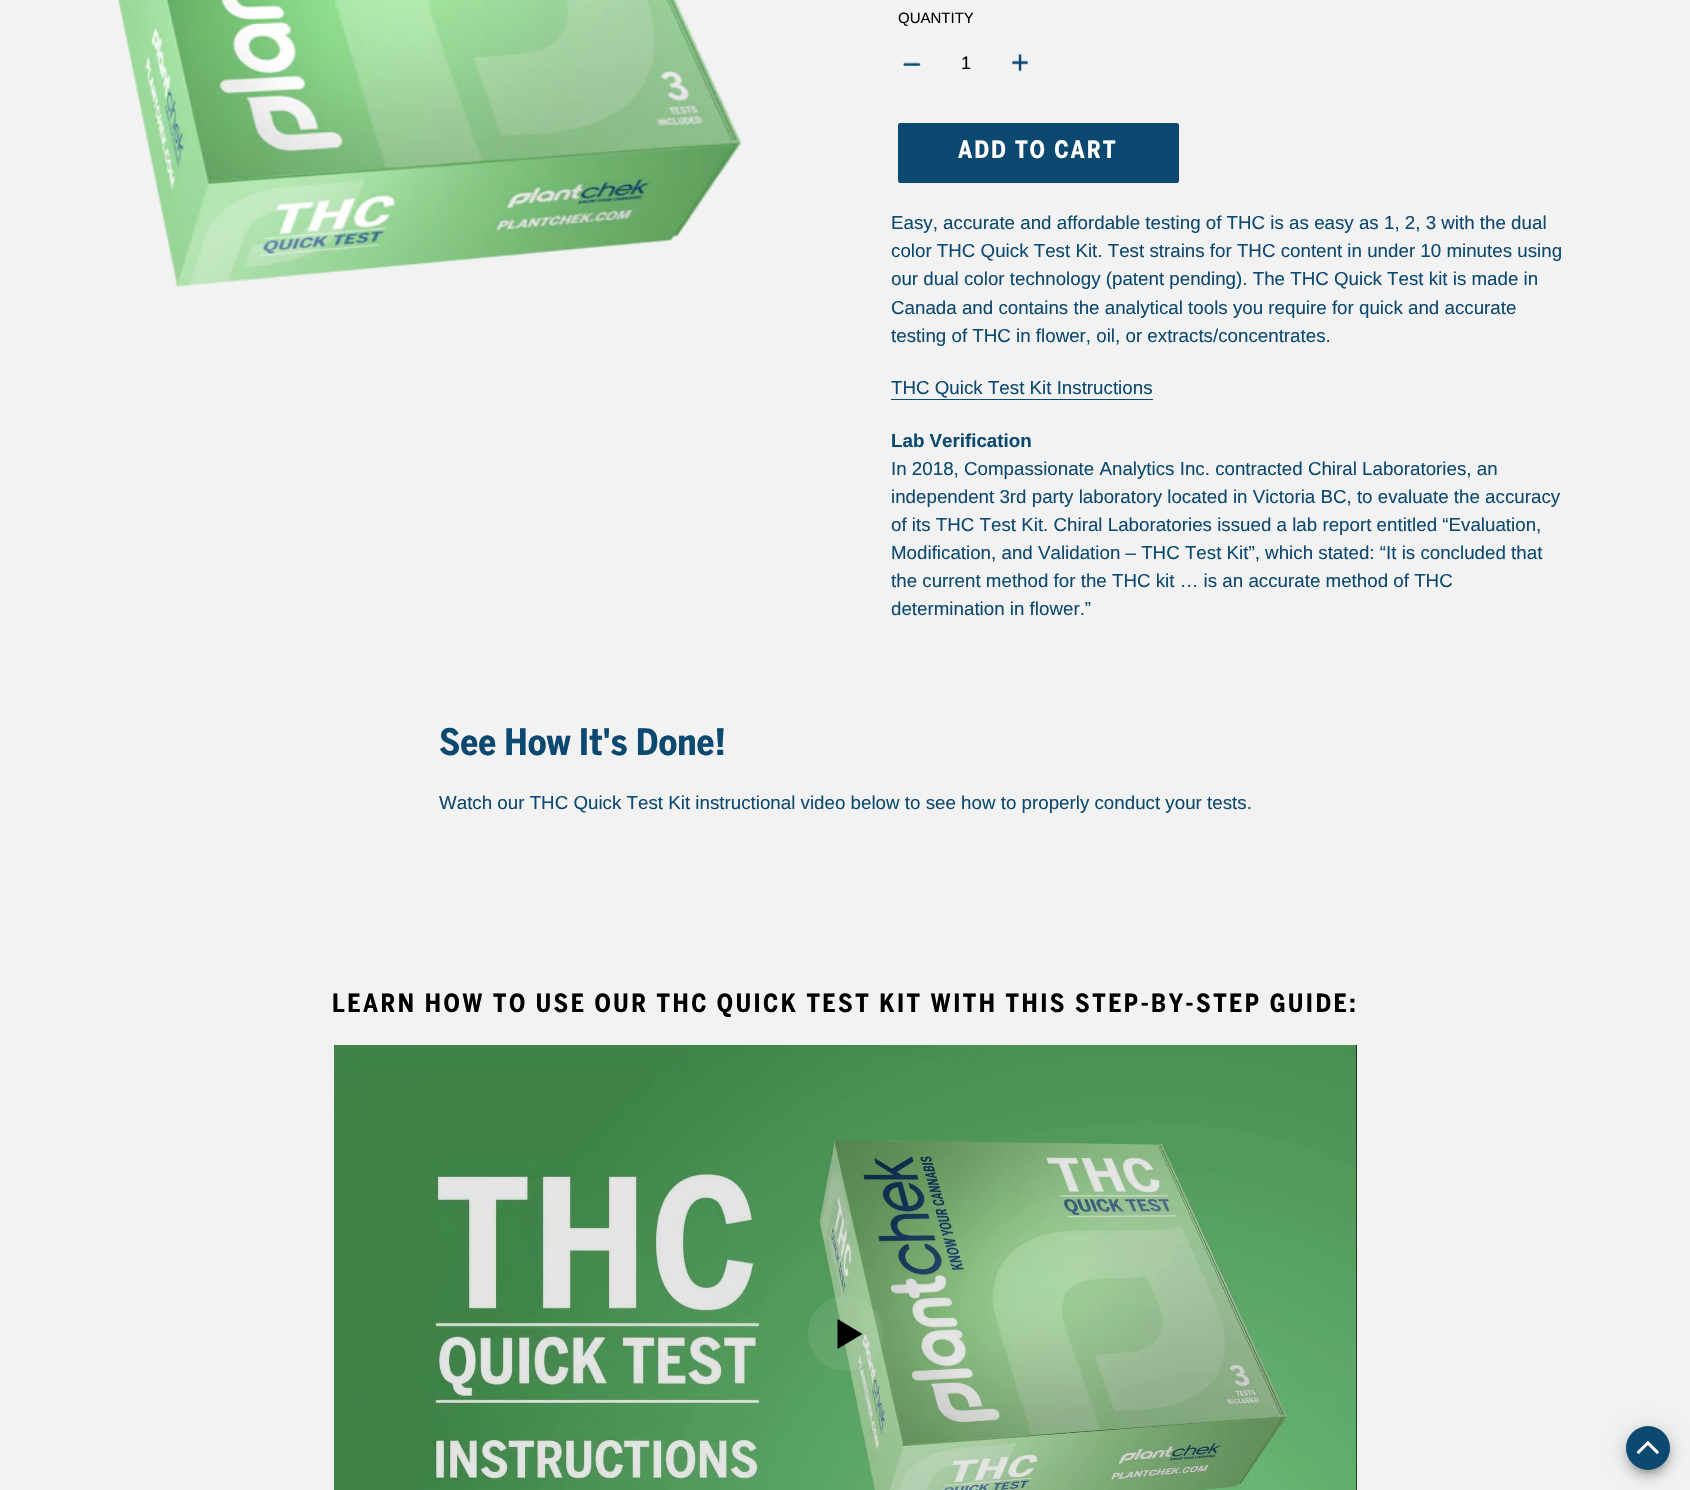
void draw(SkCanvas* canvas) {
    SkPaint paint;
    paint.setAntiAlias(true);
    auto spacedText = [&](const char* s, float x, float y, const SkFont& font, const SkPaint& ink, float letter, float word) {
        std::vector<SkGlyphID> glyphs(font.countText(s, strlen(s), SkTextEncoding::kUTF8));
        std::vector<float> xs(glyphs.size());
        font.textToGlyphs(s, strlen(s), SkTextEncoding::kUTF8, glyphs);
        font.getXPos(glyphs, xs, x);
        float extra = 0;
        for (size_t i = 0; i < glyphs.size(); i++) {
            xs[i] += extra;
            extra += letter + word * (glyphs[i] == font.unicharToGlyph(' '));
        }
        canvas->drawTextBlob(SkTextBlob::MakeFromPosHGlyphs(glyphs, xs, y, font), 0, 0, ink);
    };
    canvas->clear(0xFFF2F2F2);
    canvas->drawImageRect(SkImages::DeferredFromEncodedData(SkData::MakeFromFileName("img1.png")), SkRect::MakeXYWH(117, 0, 625, 287), SkSamplingOptions());
    SkFont font1(fontMgr->matchFamilyStyle("Liberation Sans", SkFontStyle::Normal()), 15);
    font1.setSubpixel(true);
    paint.setColor(0xFF000000);
    canvas->drawString("QUANTITY", 898, 23, font1, paint);
    canvas->drawImageRect(SkImages::DeferredFromEncodedData(SkData::MakeFromFileName("img2.png")), SkRect::MakeXYWH(903, 62, 18, 4), SkSamplingOptions());
    SkFont font2(fontMgr->matchFamilyStyle("Liberation Sans", SkFontStyle::Normal()), 18);
    font2.setSubpixel(true);
    canvas->drawString("1", 961, 69, font2, paint);
    canvas->drawImageRect(SkImages::DeferredFromEncodedData(SkData::MakeFromFileName("img3.png")), SkRect::MakeXYWH(1012, 53, 16, 19), SkSamplingOptions());
    paint.setColor(0xFF0C4970);
    canvas->drawRoundRect(SkRect::MakeXYWH(898, 123, 281, 60), 2.5f, 2.5f, paint);
    SkFont font3(fontMgr->matchFamilyStyle("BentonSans", SkFontStyle::Bold()), 23.75f);
    font3.setSubpixel(true);
    paint.setColor(0xFFFFFFFF);
    spacedText("ADD TO CART", 958, 158, font3, paint, 1.9f, 0);
    SkFont font4(fontMgr->matchFamilyStyle("Liberation Sans", SkFontStyle::Normal()), 18.75f);
    font4.setSubpixel(true);
    paint.setColor(0xFF0C4970);
    canvas->drawString("Easy, accurate and affordable testing of THC is as easy as 1, 2, 3 with the dual", 891, 229, font4, paint);
    canvas->drawString("color THC Quick Test Kit. Test strains for THC content in under 10 minutes using", 891, 257, font4, paint);
    canvas->drawString("our dual color technology (patent pending). The THC Quick Test kit is made in", 891, 285, font4, paint);
    canvas->drawString("Canada and contains the analytical tools you require for quick and accurate", 891, 314, font4, paint);
    canvas->drawString("testing of THC in flower, oil, or extracts/concentrates.", 891, 342, font4, paint);
    canvas->drawString("THC Quick Test Kit Instructions", 891, 394, font4, paint);
    canvas->drawRect(SkRect::MakeXYWH(891, 399, 262, 1), paint);
    SkFont font5(fontMgr->matchFamilyStyle("Liberation Sans", SkFontStyle::Bold()), 18.75f);
    font5.setSubpixel(true);
    canvas->drawString("Lab Verification", 891, 447, font5, paint);
    canvas->drawString("In 2018, Compassionate Analytics Inc. contracted Chiral Laboratories, an", 891, 475, font4, paint);
    canvas->drawString("independent 3rd party laboratory located in Victoria BC, to evaluate the accuracy", 891, 503, font4, paint);
    canvas->drawString("of its THC Test Kit. Chiral Laboratories issued a lab report entitled “Evaluation,", 891, 531, font4, paint);
    canvas->drawString("Modification, and Validation – THC Test Kit”, which stated: “It is concluded that", 891, 559, font4, paint);
    canvas->drawString("the current method for the THC kit … is an accurate method of THC", 891, 587, font4, paint);
    canvas->drawString("determination in flower.”", 891, 615, font4, paint);
    SkFont font6(fontMgr->matchFamilyStyle("BentonSans", SkFontStyle::Bold()), 36.25f);
    font6.setSubpixel(true);
    canvas->drawString("See How It's Done!", 439, 755, font6, paint);
    canvas->drawString("Watch our THC Quick Test Kit instructional video below to see how to properly conduct your tests.", 439, 809, font4, paint);
    SkFont font7(fontMgr->matchFamilyStyle("BentonSans", SkFontStyle::Bold()), 25);
    font7.setSubpixel(true);
    paint.setColor(0xFF000000);
    spacedText("LEARN HOW TO USE OUR THC QUICK TEST KIT WITH THIS STEP-BY-STEP GUIDE:", 332, 1012, font7, paint, 2.5f, 0);
    canvas->drawImageRect(SkImages::DeferredFromEncodedData(SkData::MakeFromFileName("img5.png")), SkRect::MakeXYWH(1356, 1045, 1, 445), SkSamplingOptions());
    canvas->drawImageRect(SkImages::DeferredFromEncodedData(SkData::MakeFromFileName("img4.png")), SkRect::MakeXYWH(334, 1045, 1023, 445), SkSamplingOptions());
    paint.setColor(0x1AE6E6E6);
    canvas->drawCircle(845.5f, 1333.5f, 37.5f, paint);
    paint.setColor(0xFF000000);
    canvas->drawPath(SkPathBuilder().moveTo(837.5f, 1349).lineTo(837.5f, 1319).lineTo(862.5f, 1334).close().detach(), paint);
    paint.setColor(0x1F000000);
    paint.setMaskFilter(SkMaskFilter::MakeBlur(kNormal_SkBlurStyle, 11));
    canvas->drawRoundRect(SkRect::MakeXYWH(1626, 1428, 44, 43), 21.5f, 21.5f, paint);
    paint.setMaskFilter(nullptr);
    paint.setColor(0x24000000);
    paint.setMaskFilter(SkMaskFilter::MakeBlur(kNormal_SkBlurStyle, 6));
    canvas->drawRoundRect(SkRect::MakeXYWH(1626, 1434, 44, 44), 22, 22, paint);
    paint.setMaskFilter(nullptr);
    paint.setColor(0x33000000);
    paint.setMaskFilter(SkMaskFilter::MakeBlur(kNormal_SkBlurStyle, 3));
    canvas->drawRoundRect(SkRect::MakeXYWH(1628, 1431, 41, 42), 20.5f, 20.5f, paint);
    paint.setMaskFilter(nullptr);
    paint.setColor(0xFF0C4970);
    canvas->drawCircle(1648, 1448, 22, paint);
    canvas->drawImageRect(SkImages::DeferredFromEncodedData(SkData::MakeFromFileName("img6.png")), SkRect::MakeXYWH(1636, 1441, 23, 13), SkSamplingOptions());
}
